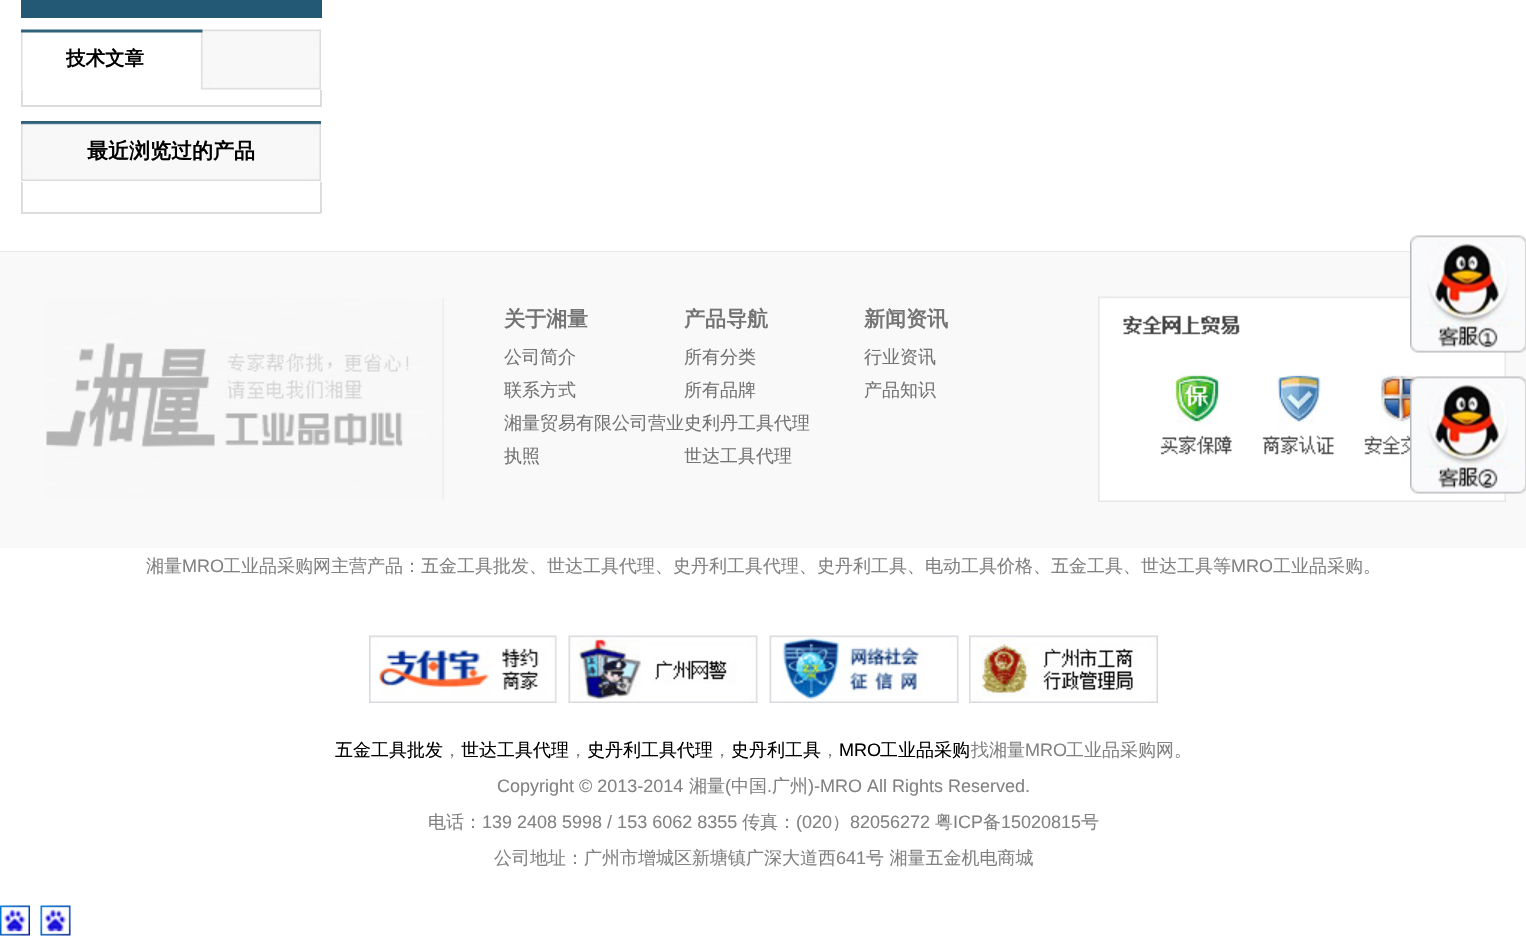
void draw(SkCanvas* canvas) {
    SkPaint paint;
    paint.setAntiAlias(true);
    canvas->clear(0xFFFFFFFF);
    paint.setColor(0xFF235975);
    canvas->drawRect(SkRect::MakeXYWH(320, 0, 2, 18), paint);
    canvas->drawRect(SkRect::MakeXYWH(21, 0, 299, 18), paint);
    canvas->drawImageRect(SkImages::DeferredFromEncodedData(SkData::MakeFromFileName("img1.png")), SkRect::MakeXYWH(21, 29, 300, 61), SkSamplingOptions());
    SkFont font1(fontMgr->matchFamilyStyle("WenQuanYi Zen Hei", SkFontStyle::Bold()), 19.5f);
    font1.setSubpixel(true);
    paint.setColor(0xFF000000);
    canvas->drawString("技术文章", 66, 65, font1, paint);
    paint.setColor(0xFFDCDCDC);
    canvas->drawRect(SkRect::MakeXYWH(320, 90, 2, 17), paint);
    canvas->drawRect(SkRect::MakeXYWH(21, 105, 300, 2), paint);
    canvas->drawRect(SkRect::MakeXYWH(21, 90, 2, 17), paint);
    canvas->drawImageRect(SkImages::DeferredFromEncodedData(SkData::MakeFromFileName("img2.png")), SkRect::MakeXYWH(21, 121, 300, 60), SkSamplingOptions());
    SkFont font2(fontMgr->matchFamilyStyle("WenQuanYi Zen Hei", SkFontStyle::Bold()), 21);
    font2.setSubpixel(true);
    paint.setColor(0xFF000000);
    canvas->drawString("最近浏览过的产品", 87, 158, font2, paint);
    paint.setColor(0xFFDCDCDC);
    canvas->drawRect(SkRect::MakeXYWH(320, 182, 2, 31), paint);
    canvas->drawRect(SkRect::MakeXYWH(21, 212, 300, 2), paint);
    canvas->drawRect(SkRect::MakeXYWH(21, 182, 2, 31), paint);
    paint.setColor(0xFFEAEAEA);
    canvas->drawRect(SkRect::MakeXYWH(0, 251, 1410, 1), paint);
    paint.setColor(0xFFF9F9F9);
    canvas->drawRect(SkRect::MakeXYWH(0, 252, 1526, 296), paint);
    canvas->drawImageRect(SkImages::DeferredFromEncodedData(SkData::MakeFromFileName("img3.png")), SkRect::MakeXYWH(46, 298, 398, 203), SkSamplingOptions());
    paint.setColor(0xFF747474);
    canvas->drawString("关于湘量", 504, 326, font2, paint);
    SkFont font3(fontMgr->matchFamilyStyle("WenQuanYi Zen Hei", SkFontStyle(500, SkFontStyle::kNormal_Width, SkFontStyle::kUpright_Slant)), 18);
    font3.setSubpixel(true);
    canvas->drawString("公司简介", 504, 363, font3, paint);
    canvas->drawString("联系方式", 504, 396, font3, paint);
    canvas->drawString("湘量贸易有限公司营业史利丹工具代理", 504, 429, font3, paint);
    canvas->drawString("执照", 504, 462, font3, paint);
    canvas->drawImageRect(SkImages::DeferredFromEncodedData(SkData::MakeFromFileName("img4.png")), SkRect::MakeXYWH(1098, 296, 408, 206), SkSamplingOptions());
    canvas->drawString("产品导航", 684, 326, font2, paint);
    canvas->drawString("所有分类", 684, 363, font3, paint);
    canvas->drawString("所有品牌", 684, 396, font3, paint);
    canvas->drawString("世达工具代理", 684, 462, font3, paint);
    canvas->drawString("新闻资讯", 864, 326, font2, paint);
    canvas->drawString("行业资讯", 864, 363, font3, paint);
    canvas->drawString("产品知识", 864, 396, font3, paint);
    paint.setColor(0xFF828282);
    canvas->drawString("湘量", 146, 572, font3, paint);
    SkFont font4(fontMgr->matchFamilyStyle("Liberation Sans", SkFontStyle::Normal()), 18);
    font4.setSubpixel(true);
    canvas->drawString("MRO", 182, 572, font4, paint);
    canvas->drawString("工业品采购网主营产品：五金工具批发、世达工具代理、史丹利工具代理、史丹利工具、电动工具价格、五金工具、世达工具等", 223, 572, font3, paint);
    canvas->drawString("MRO", 1231, 572, font4, paint);
    canvas->drawString("工业品采购。", 1273, 572, font3, paint);
    canvas->drawImageRect(SkImages::DeferredFromEncodedData(SkData::MakeFromFileName("img5.png")), SkRect::MakeXYWH(369, 635, 188, 68), SkSamplingOptions());
    canvas->drawImageRect(SkImages::DeferredFromEncodedData(SkData::MakeFromFileName("img6.png")), SkRect::MakeXYWH(568, 635, 190, 68), SkSamplingOptions());
    canvas->drawImageRect(SkImages::DeferredFromEncodedData(SkData::MakeFromFileName("img7.png")), SkRect::MakeXYWH(769, 635, 190, 68), SkSamplingOptions());
    canvas->drawImageRect(SkImages::DeferredFromEncodedData(SkData::MakeFromFileName("img8.png")), SkRect::MakeXYWH(969, 635, 189, 68), SkSamplingOptions());
    paint.setColor(0xFF000000);
    canvas->drawString("五金工具批发", 335, 756, font3, paint);
    paint.setColor(0xFF828282);
    canvas->drawString("，", 443, 756, font3, paint);
    paint.setColor(0xFF000000);
    canvas->drawString("世达工具代理", 461, 756, font3, paint);
    paint.setColor(0xFF828282);
    canvas->drawString("，", 569, 756, font3, paint);
    paint.setColor(0xFF000000);
    canvas->drawString("史丹利工具代理", 587, 756, font3, paint);
    paint.setColor(0xFF828282);
    canvas->drawString("，", 713, 756, font3, paint);
    paint.setColor(0xFF000000);
    canvas->drawString("史丹利工具", 731, 756, font3, paint);
    paint.setColor(0xFF828282);
    canvas->drawString("，", 821, 756, font3, paint);
    paint.setColor(0xFF000000);
    canvas->drawString("MRO", 839, 756, font4, paint);
    canvas->drawString("工业品采购", 880, 756, font3, paint);
    paint.setColor(0xFF828282);
    canvas->drawString("找湘量", 971, 756, font3, paint);
    canvas->drawString("MRO", 1025, 756, font4, paint);
    canvas->drawString("工业品采购网。", 1066, 756, font3, paint);
    canvas->drawString("Copyright © 2013-2014", 497, 792, font4, paint);
    canvas->drawString("湘量", 689, 792, font3, paint);
    canvas->drawString("(", 725, 792, font4, paint);
    canvas->drawString("中国", 731, 792, font3, paint);
    canvas->drawString(".", 767, 792, font4, paint);
    canvas->drawString("广州", 772, 792, font3, paint);
    canvas->drawString(")-MRO All Rights Reserved.", 808, 792, font4, paint);
    canvas->drawString("电话：", 428, 828, font3, paint);
    canvas->drawString("139 2408 5998 / 153 6062 8355", 482, 828, font4, paint);
    canvas->drawString("传真：", 742, 828, font3, paint);
    canvas->drawString("(020", 796, 828, font4, paint);
    canvas->drawString("）", 832, 828, font3, paint);
    canvas->drawString("82056272", 850, 828, font4, paint);
    canvas->drawString("粤", 935, 828, font3, paint);
    canvas->drawString("ICP", 953, 828, font4, paint);
    canvas->drawString("备", 983, 828, font3, paint);
    canvas->drawString("15020815", 1001, 828, font4, paint);
    canvas->drawString("号", 1081, 828, font3, paint);
    canvas->drawString("公司地址：广州市增城区新塘镇广深大道西", 494, 864, font3, paint);
    canvas->drawString("641", 836, 864, font4, paint);
    canvas->drawString("号 湘量五金机电商城", 866, 864, font3, paint);
    canvas->drawImageRect(SkImages::DeferredFromEncodedData(SkData::MakeFromFileName("img9.png")), SkRect::MakeXYWH(1410, 235, 116, 118), SkSamplingOptions());
    canvas->drawImageRect(SkImages::DeferredFromEncodedData(SkData::MakeFromFileName("img10.png")), SkRect::MakeXYWH(1410, 376, 116, 118), SkSamplingOptions());
    canvas->drawImageRect(SkImages::DeferredFromEncodedData(SkData::MakeFromFileName("img11.png")), SkRect::MakeXYWH(0, 905, 30, 31), SkSamplingOptions());
    canvas->drawImageRect(SkImages::DeferredFromEncodedData(SkData::MakeFromFileName("img12.png")), SkRect::MakeXYWH(40, 905, 31, 31), SkSamplingOptions());
}
